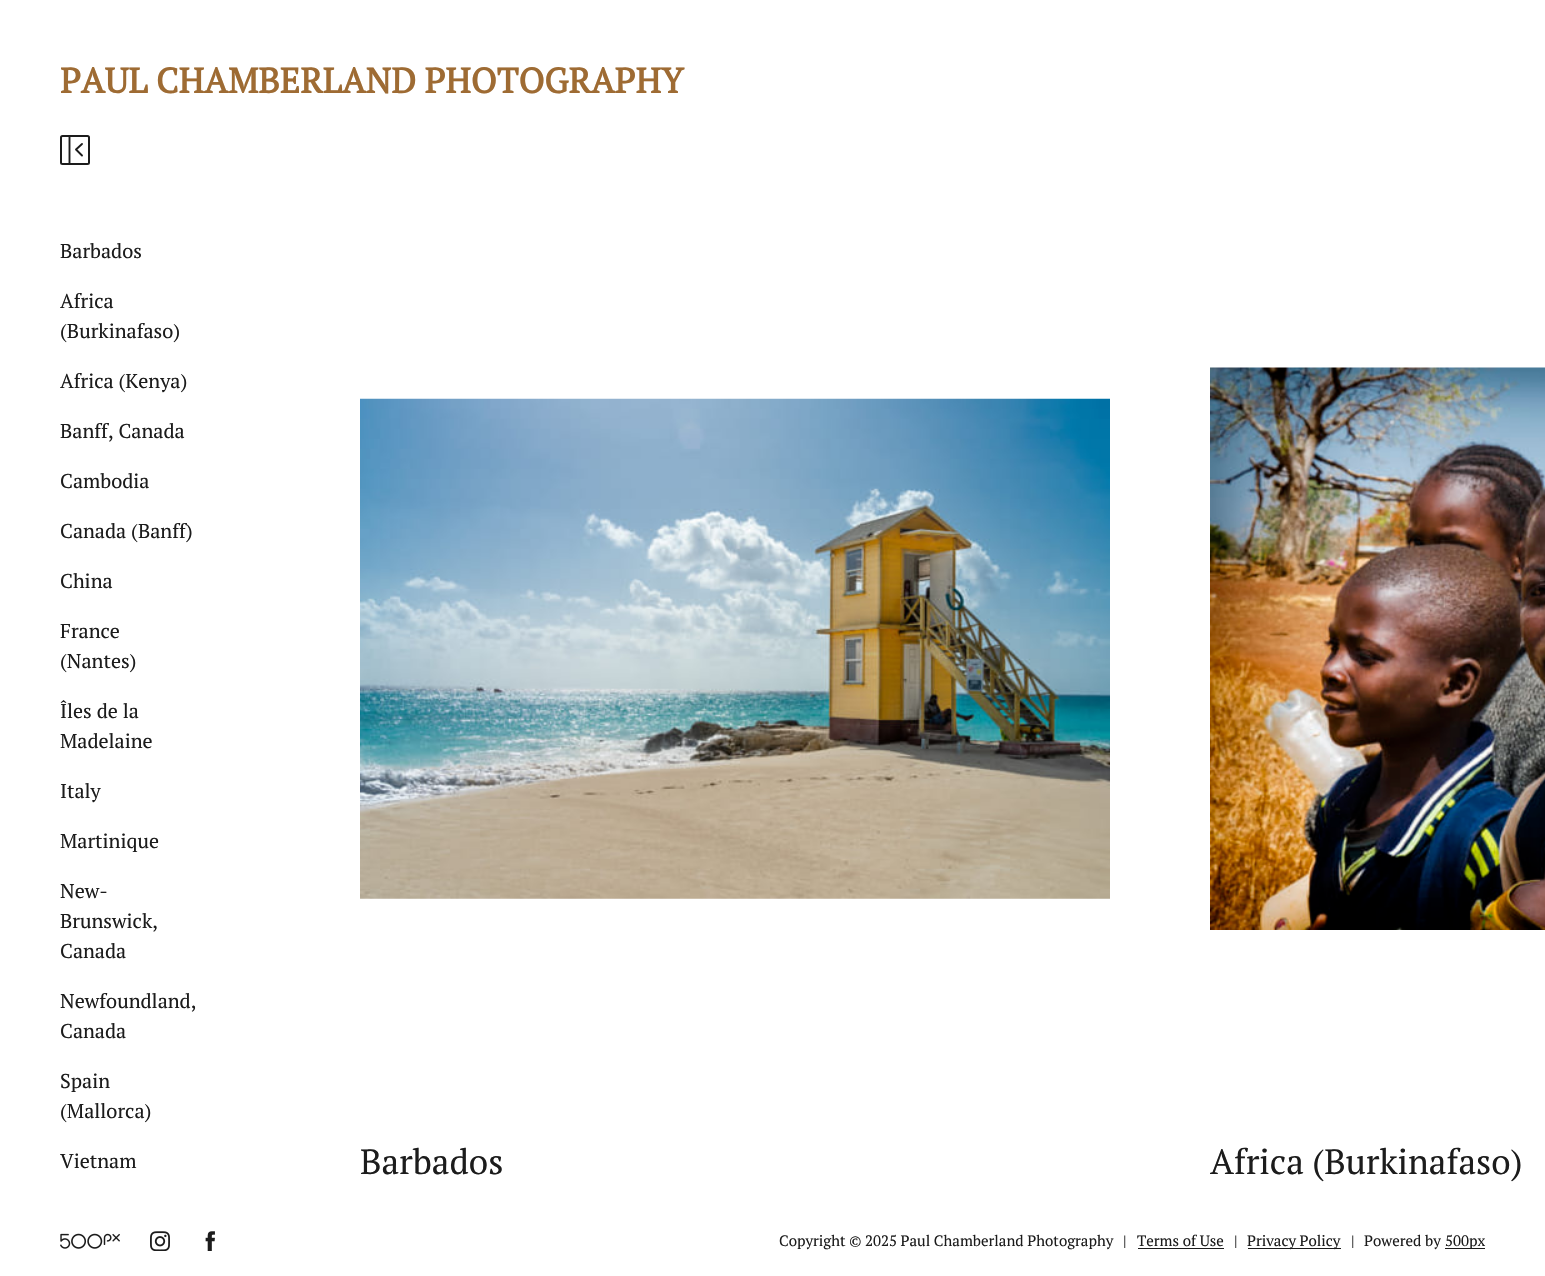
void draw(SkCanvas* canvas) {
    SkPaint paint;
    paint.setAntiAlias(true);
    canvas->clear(0xFFFFFFFF);
    SkFont font1(fontMgr->matchFamilyStyle("PT Serif", SkFontStyle::Bold()), 35);
    font1.setSubpixel(true);
    paint.setColor(0xFF9E6B33);
    canvas->drawString("PAUL CHAMBERLAND PHOTOGRAPHY", 60, 93, font1, paint);
    paint.setStyle(SkPaint::kStroke_Style);
    paint.setStrokeWidth(2);
    paint.setColor(0xFF1C1C1C);
    canvas->drawRoundRect(SkRect::MakeXYWH(61, 136, 28, 28), 1.5f, 1.5f, paint);
    paint.setStrokeWidth(1.9f);
    canvas->drawPath(SkPathBuilder().moveTo(69.5f, 136).lineTo(69.5f, 164).detach(), paint);
    paint.setStrokeCap(SkPaint::kRound_Cap);
    paint.setStrokeJoin(SkPaint::kRound_Join);
    canvas->drawPath(SkPathBuilder().moveTo(82, 155.5f).lineTo(76, 149.5f).lineTo(82, 144).detach(), paint);
    SkFont font2(fontMgr->matchFamilyStyle("PT Serif", SkFontStyle::Normal()), 20);
    font2.setSubpixel(true);
    paint.setStyle(SkPaint::kFill_Style);
    canvas->drawString("Barbados", 60, 258, font2, paint);
    canvas->drawString("Africa", 60, 308, font2, paint);
    canvas->drawString("(Burkinafaso)", 60, 338, font2, paint);
    canvas->drawString("Africa (Kenya)", 60, 388, font2, paint);
    canvas->drawString("Banff, Canada", 60, 438, font2, paint);
    canvas->drawString("Cambodia", 60, 488, font2, paint);
    canvas->drawString("Canada (Banff)", 60, 538, font2, paint);
    canvas->drawString("China", 60, 588, font2, paint);
    canvas->drawString("France", 60, 638, font2, paint);
    canvas->drawString("(Nantes)", 60, 668, font2, paint);
    canvas->drawString("Îles de la", 60, 718, font2, paint);
    canvas->drawString("Madelaine", 60, 748, font2, paint);
    canvas->drawString("Italy", 60, 798, font2, paint);
    canvas->drawString("Martinique", 60, 848, font2, paint);
    canvas->drawString("New-", 60, 898, font2, paint);
    canvas->drawString("Brunswick,", 60, 928, font2, paint);
    canvas->drawString("Canada", 60, 958, font2, paint);
    canvas->drawString("Newfoundland,", 60, 1008, font2, paint);
    canvas->drawString("Canada", 60, 1038, font2, paint);
    canvas->drawString("Spain", 60, 1088, font2, paint);
    canvas->drawString("(Mallorca)", 60, 1118, font2, paint);
    canvas->drawString("Vietnam", 60, 1168, font2, paint);
    canvas->drawImageRect(SkImages::DeferredFromEncodedData(SkData::MakeFromFileName("img1.png")), SkRect::MakeXYWH(360, 398, 750, 501), SkSamplingOptions());
    SkFont font3(fontMgr->matchFamilyStyle("PT Serif", SkFontStyle::Normal()), 35);
    font3.setSubpixel(true);
    canvas->drawString("Barbados", 360, 1174, font3, paint);
    canvas->drawImageRect(SkImages::DeferredFromEncodedData(SkData::MakeFromFileName("img2.png")), SkRect::MakeXYWH(1210, 367, 335, 563), SkSamplingOptions());
    canvas->drawString("Africa (Burkinafaso)", 1210, 1174, font3, paint);
    canvas->drawImageRect(SkImages::DeferredFromEncodedData(SkData::MakeFromFileName("img3.png")), SkRect::MakeXYWH(60, 1233, 60, 16), SkSamplingOptions());
    canvas->drawImageRect(SkImages::DeferredFromEncodedData(SkData::MakeFromFileName("img4.png")), SkRect::MakeXYWH(150, 1231, 20, 20), SkSamplingOptions());
    canvas->drawImageRect(SkImages::DeferredFromEncodedData(SkData::MakeFromFileName("img5.png")), SkRect::MakeXYWH(205, 1231, 10, 20), SkSamplingOptions());
    SkFont font4(fontMgr->matchFamilyStyle("PT Serif", SkFontStyle::Normal()), 15);
    font4.setSubpixel(true);
    canvas->drawString("Copyright © 2025 Paul Chamberland Photography", 779, 1246, font4, paint);
    canvas->drawString("|", 1123, 1246, font4, paint);
    canvas->drawString("Terms of Use", 1137, 1246, font4, paint);
    canvas->drawRect(SkRect::MakeXYWH(1138, 1248, 86, 1), paint);
    canvas->drawString("|", 1234, 1246, font4, paint);
    canvas->drawRect(SkRect::MakeXYWH(1248, 1248, 93, 1), paint);
    canvas->drawString("Privacy Policy", 1247, 1246, font4, paint);
    canvas->drawString("|", 1351, 1246, font4, paint);
    canvas->drawString("Powered by", 1364, 1246, font4, paint);
    canvas->drawRect(SkRect::MakeXYWH(1445, 1248, 40, 1), paint);
    canvas->drawString("500px", 1445, 1246, font4, paint);
}
